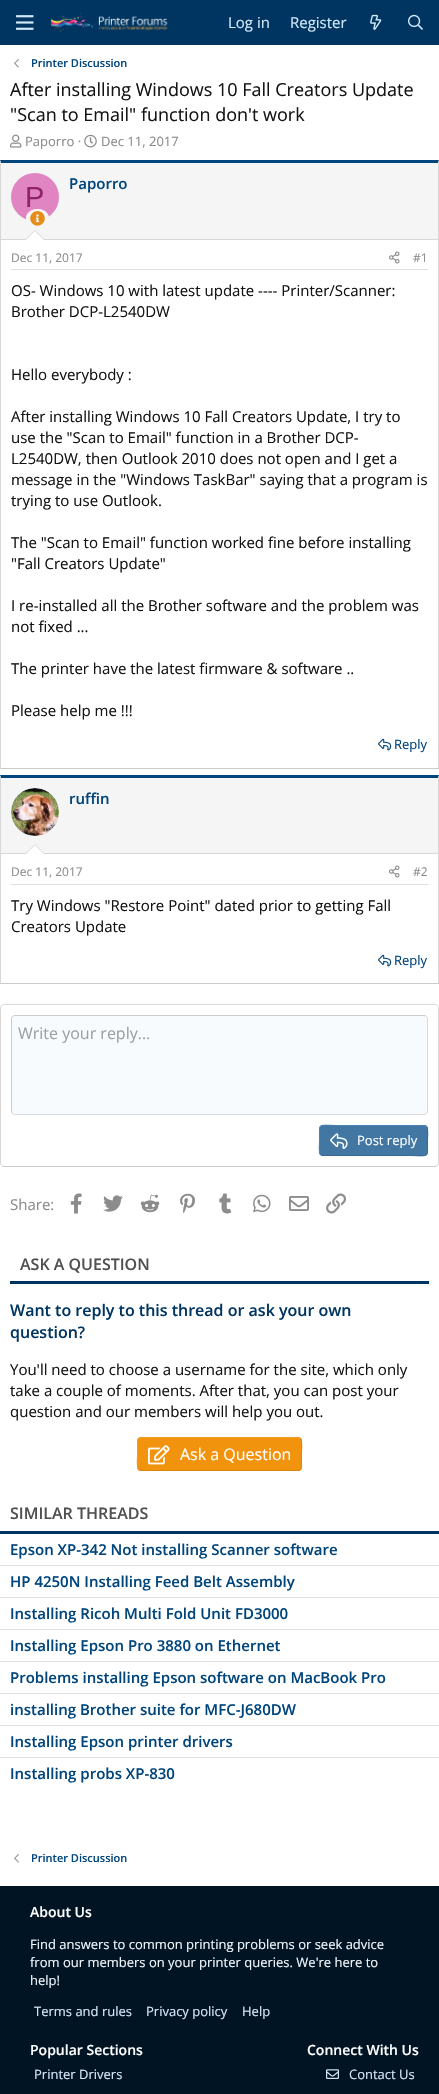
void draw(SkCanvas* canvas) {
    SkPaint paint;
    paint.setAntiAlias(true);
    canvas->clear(0xFFFFFFFF);
    paint.setColor(0xFF003561);
    canvas->drawRect(SkRect::MakeXYWH(0, 0, 439, 45), paint);
    canvas->drawImageRect(SkImages::DeferredFromEncodedData(SkData::MakeFromFileName("img1.png")), SkRect::MakeXYWH(16, 15, 18, 15), SkSamplingOptions());
    canvas->drawImageRect(SkImages::DeferredFromEncodedData(SkData::MakeFromFileName("img2.png")), SkRect::MakeXYWH(51, 12, 117, 20), SkSamplingOptions());
    SkFont font1(fontMgr->matchFamilyStyle("Open Sans", SkFontStyle::Normal()), 15);
    font1.setSubpixel(true);
    paint.setColor(0xFFD2E7F8);
    canvas->drawString("Log in", 228, 28, font1, paint);
    canvas->drawString("Register", 290, 28, font1, paint);
    canvas->drawImageRect(SkImages::DeferredFromEncodedData(SkData::MakeFromFileName("img3.png")), SkRect::MakeXYWH(370, 14, 12, 16), SkSamplingOptions());
    canvas->drawImageRect(SkImages::DeferredFromEncodedData(SkData::MakeFromFileName("img4.png")), SkRect::MakeXYWH(408, 14, 15, 16), SkSamplingOptions());
    canvas->drawImageRect(SkImages::DeferredFromEncodedData(SkData::MakeFromFileName("img5.png")), SkRect::MakeXYWH(14, 59, 5, 9), SkSamplingOptions());
    SkFont font2(fontMgr->matchFamilyStyle("Open Sans", SkFontStyle(600, SkFontStyle::kNormal_Width, SkFontStyle::kUpright_Slant)), 11);
    font2.setSubpixel(true);
    paint.setColor(0xFF00457C);
    canvas->drawString("Printer Discussion", 31, 67, font2, paint);
    SkFont font3(fontMgr->matchFamilyStyle("Open Sans", SkFontStyle::Normal()), 18);
    font3.setSubpixel(true);
    paint.setColor(0xFF141414);
    canvas->drawString("After installing Windows 10 Fall Creators Update", 10, 96, font3, paint);
    canvas->drawString("\"Scan to Email\" function don't work", 10, 121, font3, paint);
    canvas->drawImageRect(SkImages::DeferredFromEncodedData(SkData::MakeFromFileName("img6.png")), SkRect::MakeXYWH(10, 134, 12, 14), SkSamplingOptions());
    SkFont font4(fontMgr->matchFamilyStyle("Open Sans", SkFontStyle::Normal()), 13);
    font4.setSubpixel(true);
    paint.setColor(0xFF8C8C8C);
    canvas->drawString("Paporro ·", 25, 146, font4, paint);
    canvas->drawImageRect(SkImages::DeferredFromEncodedData(SkData::MakeFromFileName("img7.png")), SkRect::MakeXYWH(84, 134, 13, 14), SkSamplingOptions());
    canvas->drawString("Dec 11, 2017", 101, 146, font4, paint);
    paint.setColor(0xFF00457C);
    canvas->drawPath(SkPathBuilder().moveTo(0, 160).lineTo(439, 160).lineTo(438, 163).lineTo(1, 163).close().detach(), paint);
    paint.setColor(0xFFD8D8D8);
    canvas->drawPath(SkPathBuilder().moveTo(439, 160).lineTo(439, 769).lineTo(438, 768).lineTo(438, 163).close().detach(), paint);
    paint.setColor(0xFFCBCBCB);
    canvas->drawRect(SkRect::MakeXYWH(0, 768, 439, 1), paint);
    paint.setColor(0xFFD8D8D8);
    canvas->drawPath(SkPathBuilder().moveTo(0, 769).lineTo(0, 160).lineTo(1, 163).lineTo(1, 768).close().detach(), paint);
    paint.setColor(0xFFF5F5F5);
    canvas->drawRect(SkRect::MakeXYWH(1, 163, 437, 76), paint);
    paint.setColor(0xFFD8D8D8);
    canvas->drawRect(SkRect::MakeXYWH(1, 239, 437, 1), paint);
    SkFont font5(fontMgr->matchFamilyStyle("Open Sans", SkFontStyle(600, SkFontStyle::kNormal_Width, SkFontStyle::kUpright_Slant)), 15);
    font5.setSubpixel(true);
    paint.setColor(0xFF00457C);
    canvas->drawString("Paporro", 69, 189, font5, paint);
    paint.setColor(0xFFE085C2);
    canvas->drawCircle(35, 197, 24, paint);
    SkFont font6(fontMgr->matchFamilyStyle("Liberation Sans", SkFontStyle::Normal()), 29);
    font6.setSubpixel(true);
    paint.setColor(0xFF8F246B);
    canvas->drawString("P", 25, 207, font6, paint);
    paint.setColor(0xFFF5F5F5);
    canvas->drawOval(SkRect::MakeXYWH(26, 209, 23, 19), paint);
    paint.setStyle(SkPaint::kStroke_Style);
    paint.setStrokeWidth(2);
    canvas->drawPath(SkPathBuilder().moveTo(37.5f, 210).cubicTo(51.5f, 210, 51.5f, 227, 37.5f, 227).cubicTo(23.5f, 227, 23.5f, 210, 37.5f, 210).close().detach(), paint);
    canvas->drawImageRect(SkImages::DeferredFromEncodedData(SkData::MakeFromFileName("img8.png")), SkRect::MakeXYWH(30, 211, 15, 15), SkSamplingOptions());
    paint.setStyle(SkPaint::kFill_Style);
    paint.setColor(0xFFD8D8D8);
    canvas->drawPath(SkPathBuilder().moveTo(45, 240).lineTo(25, 240).lineTo(35, 230).close().detach(), paint);
    paint.setColor(0xFFFEFEFE);
    canvas->drawPath(SkPathBuilder().moveTo(44, 240).lineTo(26, 240).lineTo(35, 231).close().detach(), paint);
    paint.setColor(0xFFDFDFDF);
    canvas->drawRect(SkRect::MakeXYWH(11, 269, 417, 1), paint);
    SkFont font7(fontMgr->matchFamilyStyle("Open Sans", SkFontStyle::Normal()), 12);
    font7.setSubpixel(true);
    paint.setColor(0xFF8C8C8C);
    canvas->drawString("Dec 11, 2017", 11, 262, font7, paint);
    canvas->drawImageRect(SkImages::DeferredFromEncodedData(SkData::MakeFromFileName("img9.png")), SkRect::MakeXYWH(389, 251, 11, 13), SkSamplingOptions());
    canvas->drawString("#1", 413, 262, font7, paint);
    paint.setColor(0xFF141414);
    canvas->drawString("OS- Windows 10 with latest update ---- Printer/Scanner:", 11, 296, font1, paint);
    canvas->drawString("Brother DCP-L2540DW", 11, 317, font1, paint);
    canvas->drawString("Hello everybody :", 11, 380, font1, paint);
    canvas->drawString("After installing Windows 10 Fall Creators Update, I try to", 11, 422, font1, paint);
    canvas->drawString("use the \"Scan to Email\" function in a Brother DCP-", 11, 443, font1, paint);
    canvas->drawString("L2540DW, then Outlook 2010 does not open and I get a", 11, 464, font1, paint);
    canvas->drawString("message in the \"Windows TaskBar\" saying that a program is", 11, 485, font1, paint);
    canvas->drawString("trying to use Outlook.", 11, 506, font1, paint);
    canvas->drawString("The \"Scan to Email\" function worked fine before installing", 11, 548, font1, paint);
    canvas->drawString("\"Fall Creators Update\"", 11, 569, font1, paint);
    canvas->drawString("I re-installed all the Brother software and the problem was", 11, 611, font1, paint);
    canvas->drawString("not fixed ...", 11, 632, font1, paint);
    canvas->drawString("The printer have the latest firmware & software ..", 11, 674, font1, paint);
    canvas->drawString("Please help me !!!", 11, 716, font1, paint);
    canvas->drawImageRect(SkImages::DeferredFromEncodedData(SkData::MakeFromFileName("img10.png")), SkRect::MakeXYWH(378, 738, 14, 13), SkSamplingOptions());
    paint.setColor(0xFF00457C);
    canvas->drawString("Reply", 394, 749, font4, paint);
    canvas->drawPath(SkPathBuilder().moveTo(0, 775).lineTo(439, 775).lineTo(438, 778).lineTo(1, 778).close().detach(), paint);
    paint.setColor(0xFFD8D8D8);
    canvas->drawPath(SkPathBuilder().moveTo(439, 775).lineTo(439, 984).lineTo(438, 983).lineTo(438, 778).close().detach(), paint);
    paint.setColor(0xFFCBCBCB);
    canvas->drawRect(SkRect::MakeXYWH(0, 983, 439, 1), paint);
    paint.setColor(0xFFD8D8D8);
    canvas->drawPath(SkPathBuilder().moveTo(0, 984).lineTo(0, 775).lineTo(1, 778).lineTo(1, 983).close().detach(), paint);
    paint.setColor(0xFFF5F5F5);
    canvas->drawRect(SkRect::MakeXYWH(1, 778, 437, 75), paint);
    paint.setColor(0xFFD8D8D8);
    canvas->drawRect(SkRect::MakeXYWH(1, 853, 437, 1), paint);
    paint.setColor(0xFFFEFEFE);
    canvas->drawCircle(35, 812, 24, paint);
    canvas->drawImageRect(SkImages::DeferredFromEncodedData(SkData::MakeFromFileName("img11.png")), SkRect::MakeXYWH(11, 788, 48, 48), SkSamplingOptions());
    paint.setColor(0xFF00457C);
    canvas->drawString("ruffin", 69, 804, font5, paint);
    paint.setColor(0xFFD8D8D8);
    canvas->drawPath(SkPathBuilder().moveTo(45, 854).lineTo(25, 854).lineTo(35, 844).close().detach(), paint);
    paint.setColor(0xFFFEFEFE);
    canvas->drawPath(SkPathBuilder().moveTo(44, 854).lineTo(26, 854).lineTo(35, 845).close().detach(), paint);
    paint.setColor(0xFFDFDFDF);
    canvas->drawRect(SkRect::MakeXYWH(11, 884, 417, 1), paint);
    paint.setColor(0xFF8C8C8C);
    canvas->drawString("Dec 11, 2017", 11, 876, font7, paint);
    canvas->drawImageRect(SkImages::DeferredFromEncodedData(SkData::MakeFromFileName("img9.png")), SkRect::MakeXYWH(389, 865, 11, 13), SkSamplingOptions());
    canvas->drawString("#2", 413, 876, font7, paint);
    paint.setColor(0xFF141414);
    canvas->drawString("Try Windows \"Restore Point\" dated prior to getting Fall", 11, 911, font1, paint);
    canvas->drawString("Creators Update", 11, 932, font1, paint);
    canvas->drawImageRect(SkImages::DeferredFromEncodedData(SkData::MakeFromFileName("img10.png")), SkRect::MakeXYWH(378, 954, 14, 13), SkSamplingOptions());
    paint.setColor(0xFF00457C);
    canvas->drawString("Reply", 394, 965, font4, paint);
    paint.setStyle(SkPaint::kStroke_Style);
    paint.setStrokeWidth(1);
    paint.setColor(0xFFDADADA);
    canvas->drawPath(SkPathBuilder().moveTo(1.5f, 1005.5f).cubicTo(2, 1005, 3, 1004.5f, 4, 1004.5f).lineTo(435, 1004.5f).cubicTo(436, 1004.5f, 437, 1005, 437.5f, 1005.5f).detach(), paint);
    paint.setColor(0xFFD8D8D8);
    canvas->drawPath(SkPathBuilder().moveTo(437.5f, 1005.5f).cubicTo(438, 1006, 438.5f, 1007, 438.5f, 1008).lineTo(438.5f, 1163).cubicTo(438.5f, 1164, 438, 1165, 437.5f, 1165.5f).detach(), paint);
    paint.setColor(0xFFCBCBCB);
    canvas->drawPath(SkPathBuilder().moveTo(437.5f, 1165.5f).cubicTo(437, 1166, 436, 1166.5f, 435, 1166.5f).lineTo(4, 1166.5f).cubicTo(3, 1166.5f, 2, 1166, 1.5f, 1165.5f).detach(), paint);
    paint.setColor(0xFFD8D8D8);
    canvas->drawPath(SkPathBuilder().moveTo(1.5f, 1165.5f).cubicTo(1, 1165, 0.5f, 1164, 0.5f, 1163).lineTo(0.5f, 1008).cubicTo(0.5f, 1007, 1, 1006, 1.5f, 1005.5f).detach(), paint);
    paint.setStyle(SkPaint::kFill_Style);
    paint.setColor(0xFFF8FBFD);
    canvas->drawRoundRect(SkRect::MakeXYWH(11, 1015, 417, 100), 4, 4, paint);
    paint.setStyle(SkPaint::kStroke_Style);
    paint.setColor(0xFFDADADA);
    canvas->drawPath(SkPathBuilder().moveTo(426.5f, 1016.5f).cubicTo(427, 1017, 427.5f, 1018, 427.5f, 1019).lineTo(427.5f, 1111).cubicTo(427.5f, 1112, 427, 1113, 426.5f, 1113.5f).cubicTo(426, 1114, 425, 1114.5f, 424, 1114.5f).lineTo(15, 1114.5f).cubicTo(14, 1114.5f, 13, 1114, 12.5f, 1113.5f).detach(), paint);
    paint.setColor(0xFFCBCBCB);
    canvas->drawPath(SkPathBuilder().moveTo(12.5f, 1113.5f).cubicTo(12, 1113, 11.5f, 1112, 11.5f, 1111).lineTo(11.5f, 1019).cubicTo(11.5f, 1018, 12, 1017, 12.5f, 1016.5f).cubicTo(13, 1016, 14, 1015.5f, 15, 1015.5f).lineTo(424, 1015.5f).cubicTo(425, 1015.5f, 426, 1016, 426.5f, 1016.5f).detach(), paint);
    SkFont font8(fontMgr->matchFamilyStyle("Open Sans", SkFontStyle::Normal()), 16);
    font8.setSubpixel(true);
    paint.setStyle(SkPaint::kFill_Style);
    paint.setColor(0xFF9D9FA0);
    canvas->drawString("Write your reply...", 18, 1039, font8, paint);
    paint.setColor(0xFF4277A3);
    canvas->drawRoundRect(SkRect::MakeXYWH(319, 1125, 109, 31), 4, 4, paint);
    paint.setStyle(SkPaint::kStroke_Style);
    paint.setColor(0xFF3B6A91);
    canvas->drawPath(SkPathBuilder().moveTo(426.5f, 1126.5f).cubicTo(428.5f, 1129, 427.5f, 1137.5f, 427.5f, 1140.5f).cubicTo(427.5f, 1159.5f, 429.5f, 1155.5f, 407, 1155.5f).lineTo(323, 1155.5f).lineTo(320.5f, 1154.5f).detach(), paint);
    paint.setColor(0xFF4984B5);
    canvas->drawPath(SkPathBuilder().moveTo(320.5f, 1154.5f).cubicTo(318.5f, 1152, 319.5f, 1143.5f, 319.5f, 1140.5f).cubicTo(319.5f, 1121.5f, 317.5f, 1125.5f, 340, 1125.5f).lineTo(424, 1125.5f).lineTo(426.5f, 1126.5f).detach(), paint);
    canvas->drawImageRect(SkImages::DeferredFromEncodedData(SkData::MakeFromFileName("img12.png")), SkRect::MakeXYWH(330, 1133, 18, 16), SkSamplingOptions());
    paint.setStyle(SkPaint::kFill_Style);
    paint.setColor(0xFFFFFFFF);
    canvas->drawString("Post reply", 357, 1145, font4, paint);
    paint.setColor(0xFF8C8C8C);
    canvas->drawString("Share:", 10, 1210, font1, paint);
    canvas->drawImageRect(SkImages::DeferredFromEncodedData(SkData::MakeFromFileName("img13.png")), SkRect::MakeXYWH(70, 1193, 12, 21), SkSamplingOptions());
    canvas->drawImageRect(SkImages::DeferredFromEncodedData(SkData::MakeFromFileName("img14.png")), SkRect::MakeXYWH(103, 1195, 20, 17), SkSamplingOptions());
    canvas->drawImageRect(SkImages::DeferredFromEncodedData(SkData::MakeFromFileName("img15.png")), SkRect::MakeXYWH(140, 1194, 20, 19), SkSamplingOptions());
    canvas->drawImageRect(SkImages::DeferredFromEncodedData(SkData::MakeFromFileName("img16.png")), SkRect::MakeXYWH(180, 1193, 15, 21), SkSamplingOptions());
    canvas->drawImageRect(SkImages::DeferredFromEncodedData(SkData::MakeFromFileName("img17.png")), SkRect::MakeXYWH(219, 1193, 13, 21), SkSamplingOptions());
    canvas->drawImageRect(SkImages::DeferredFromEncodedData(SkData::MakeFromFileName("img18.png")), SkRect::MakeXYWH(253, 1194, 18, 19), SkSamplingOptions());
    canvas->drawImageRect(SkImages::DeferredFromEncodedData(SkData::MakeFromFileName("img19.png")), SkRect::MakeXYWH(289, 1196, 20, 15), SkSamplingOptions());
    canvas->drawImageRect(SkImages::DeferredFromEncodedData(SkData::MakeFromFileName("img20.png")), SkRect::MakeXYWH(326, 1193, 20, 21), SkSamplingOptions());
    paint.setColor(0xFF003561);
    canvas->drawRect(SkRect::MakeXYWH(10, 1281, 419, 3), paint);
    SkFont font9(fontMgr->matchFamilyStyle("Open Sans", SkFontStyle(600, SkFontStyle::kNormal_Width, SkFontStyle::kUpright_Slant)), 16);
    font9.setSubpixel(true);
    paint.setColor(0xFF505050);
    canvas->drawString("ASK A QUESTION", 20, 1270, font9, paint);
    paint.setColor(0xFF003561);
    canvas->drawString("Want to reply to this thread or ask your own", 10, 1316, font9, paint);
    canvas->drawString("question?", 10, 1338, font9, paint);
    paint.setColor(0xFF141414);
    canvas->drawString("You'll need to choose a username for the site, which only", 10, 1375, font1, paint);
    canvas->drawString("take a couple of moments. After that, you can post your", 10, 1396, font1, paint);
    canvas->drawString("question and our members will help you out.", 10, 1417, font1, paint);
    paint.setColor(0xFFF2930D);
    canvas->drawRoundRect(SkRect::MakeXYWH(137, 1437, 165, 34), 4, 4, paint);
    paint.setStyle(SkPaint::kStroke_Style);
    paint.setColor(0xFFDA840C);
    canvas->drawPath(SkPathBuilder().moveTo(300.5f, 1438.5f).cubicTo(302.5f, 1441, 301.5f, 1451, 301.5f, 1454).lineTo(301.5f, 1462.5f).cubicTo(301.5f, 1465.5f, 302, 1470.5f, 298, 1470.5f).lineTo(141, 1470.5f).lineTo(138.5f, 1469.5f).detach(), paint);
    paint.setColor(0xFFF39E25);
    canvas->drawPath(SkPathBuilder().moveTo(138.5f, 1469.5f).cubicTo(136.5f, 1467, 137.5f, 1457, 137.5f, 1454).lineTo(137.5f, 1445.5f).cubicTo(137.5f, 1442.5f, 137, 1437.5f, 141, 1437.5f).lineTo(298, 1437.5f).lineTo(300.5f, 1438.5f).detach(), paint);
    canvas->drawImageRect(SkImages::DeferredFromEncodedData(SkData::MakeFromFileName("img21.png")), SkRect::MakeXYWH(148, 1445, 22, 20), SkSamplingOptions());
    paint.setStyle(SkPaint::kFill_Style);
    paint.setColor(0xFFFFFFFF);
    canvas->drawString("Ask a Question", 180, 1460, font8, paint);
    paint.setColor(0xFF003561);
    canvas->drawRect(SkRect::MakeXYWH(0, 1531, 439, 3), paint);
    paint.setColor(0xFF505050);
    canvas->drawString("SIMILAR THREADS", 10, 1519, font9, paint);
    paint.setColor(0xFFDFDFDF);
    canvas->drawRect(SkRect::MakeXYWH(0, 1565, 439, 1), paint);
    paint.setColor(0xFF00457C);
    canvas->drawString("Epson XP-342 Not installing Scanner software", 10, 1555, font5, paint);
    paint.setColor(0xFFDFDFDF);
    canvas->drawRect(SkRect::MakeXYWH(0, 1597, 439, 1), paint);
    paint.setColor(0xFF00457C);
    canvas->drawString("HP 4250N Installing Feed Belt Assembly", 10, 1587, font5, paint);
    paint.setColor(0xFFDFDFDF);
    canvas->drawRect(SkRect::MakeXYWH(0, 1629, 439, 1), paint);
    paint.setColor(0xFF00457C);
    canvas->drawString("Installing Ricoh Multi Fold Unit FD3000", 10, 1619, font5, paint);
    paint.setColor(0xFFDFDFDF);
    canvas->drawRect(SkRect::MakeXYWH(0, 1661, 439, 1), paint);
    paint.setColor(0xFF00457C);
    canvas->drawString("Installing Epson Pro 3880 on Ethernet", 10, 1651, font5, paint);
    paint.setColor(0xFFDFDFDF);
    canvas->drawRect(SkRect::MakeXYWH(0, 1693, 439, 1), paint);
    paint.setColor(0xFF00457C);
    canvas->drawString("Problems installing Epson software on MacBook Pro", 10, 1683, font5, paint);
    paint.setColor(0xFFDFDFDF);
    canvas->drawRect(SkRect::MakeXYWH(0, 1725, 439, 1), paint);
    paint.setColor(0xFF00457C);
    canvas->drawString("installing Brother suite for MFC-J680DW", 10, 1715, font5, paint);
    paint.setColor(0xFFDFDFDF);
    canvas->drawRect(SkRect::MakeXYWH(0, 1757, 439, 1), paint);
    paint.setColor(0xFF00457C);
    canvas->drawString("Installing Epson printer drivers", 10, 1747, font5, paint);
    canvas->drawString("Installing probs XP-830", 10, 1779, font5, paint);
    canvas->drawImageRect(SkImages::DeferredFromEncodedData(SkData::MakeFromFileName("img5.png")), SkRect::MakeXYWH(14, 1854, 5, 9), SkSamplingOptions());
    canvas->drawString("Printer Discussion", 31, 1862, font2, paint);
    paint.setColor(0xFF001424);
    canvas->drawRect(SkRect::MakeXYWH(0, 1886, 439, 208), paint);
    SkFont font10(fontMgr->matchFamilyStyle("Open Sans", SkFontStyle(600, SkFontStyle::kNormal_Width, SkFontStyle::kUpright_Slant)), 14);
    font10.setSubpixel(true);
    paint.setColor(0xFFFFFFFF);
    canvas->drawString("About Us", 30, 1917, font10, paint);
    paint.setColor(0xFFF0F7FC);
    canvas->drawString("Find answers to common printing problems or seek advice", 30, 1949, font4, paint);
    canvas->drawString("from our members on your printer queries. We're here to", 30, 1967, font4, paint);
    canvas->drawString("help!", 30, 1985, font4, paint);
    paint.setColor(0xFFD2E7F8);
    canvas->drawString("Terms and rules", 34, 2016, font4, paint);
    canvas->drawString("Privacy policy", 146, 2016, font4, paint);
    canvas->drawString("Help", 242, 2016, font4, paint);
    paint.setColor(0xFFFFFFFF);
    canvas->drawString("Popular Sections", 30, 2055, font10, paint);
    paint.setColor(0xFFD2E7F8);
    canvas->drawString("Printer Drivers", 34, 2079, font4, paint);
    paint.setColor(0xFFFFFFFF);
    canvas->drawString("Connect With Us", 307, 2055, font10, paint);
    canvas->drawImageRect(SkImages::DeferredFromEncodedData(SkData::MakeFromFileName("img22.png")), SkRect::MakeXYWH(326, 2069, 13, 10), SkSamplingOptions());
    paint.setColor(0xFFD2E7F8);
    canvas->drawString("Contact Us", 349, 2079, font4, paint);
}
